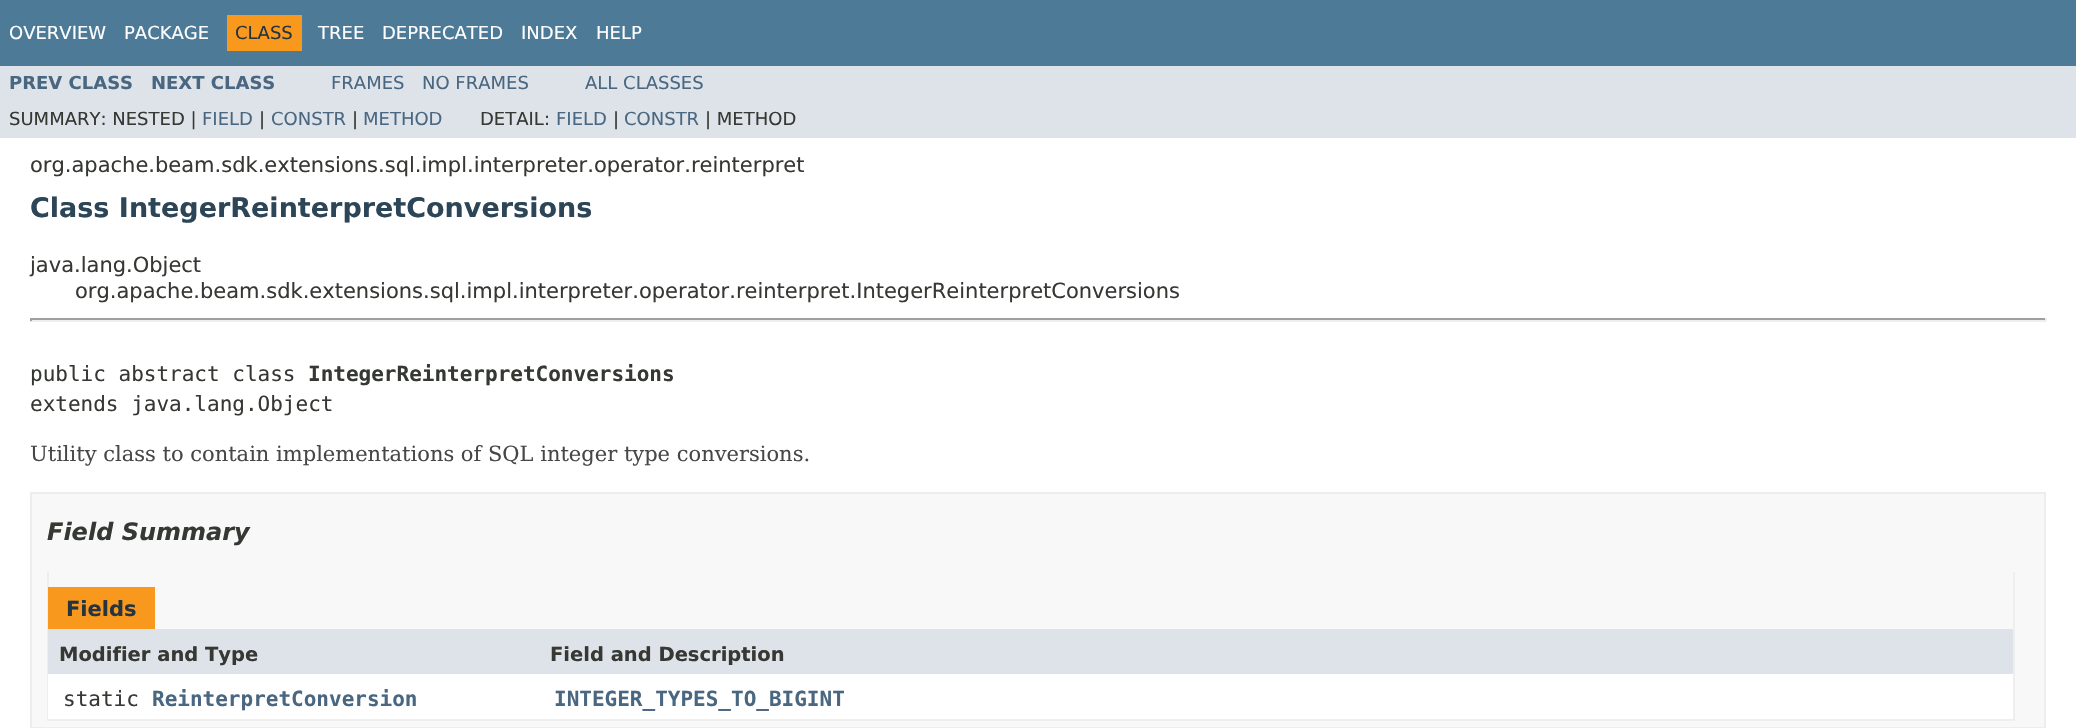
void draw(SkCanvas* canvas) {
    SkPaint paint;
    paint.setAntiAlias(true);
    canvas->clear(0xFFFFFFFF);
    paint.setColor(0xFF4D7A97);
    canvas->drawRect(SkRect::MakeXYWH(0, 0, 2076, 66), paint);
    SkFont font1(fontMgr->matchFamilyStyle("DejaVu Sans", SkFontStyle::Normal()), 18);
    font1.setSubpixel(true);
    paint.setColor(0xFFFFFFFF);
    canvas->drawString("OVERVIEW", 9, 39, font1, paint);
    canvas->drawString("PACKAGE", 124, 39, font1, paint);
    paint.setColor(0xFFF8981D);
    canvas->drawRect(SkRect::MakeXYWH(227, 15, 75, 36), paint);
    paint.setColor(0xFF253441);
    canvas->drawString("CLASS", 235, 39, font1, paint);
    paint.setColor(0xFFFFFFFF);
    canvas->drawString("TREE", 318, 39, font1, paint);
    canvas->drawString("DEPRECATED", 382, 39, font1, paint);
    canvas->drawString("INDEX", 521, 39, font1, paint);
    canvas->drawString("HELP", 596, 39, font1, paint);
    paint.setColor(0xFFDEE3E9);
    canvas->drawRect(SkRect::MakeXYWH(0, 66, 2076, 72), paint);
    SkFont font2(fontMgr->matchFamilyStyle("DejaVu Sans", SkFontStyle::Bold()), 18);
    font2.setSubpixel(true);
    paint.setColor(0xFF4A6782);
    canvas->drawString("PREV CLASS", 9, 89, font2, paint);
    canvas->drawString("NEXT CLASS", 151, 89, font2, paint);
    canvas->drawString("FRAMES", 331, 89, font1, paint);
    canvas->drawString("NO FRAMES", 422, 89, font1, paint);
    canvas->drawString("ALL CLASSES", 585, 89, font1, paint);
    paint.setColor(0xFF353833);
    canvas->drawString("SUMMARY: NESTED |", 9, 125, font1, paint);
    paint.setColor(0xFF4A6782);
    canvas->drawString("FIELD", 202, 125, font1, paint);
    paint.setColor(0xFF353833);
    canvas->drawString("|", 259, 125, font1, paint);
    paint.setColor(0xFF4A6782);
    canvas->drawString("CONSTR", 271, 125, font1, paint);
    paint.setColor(0xFF353833);
    canvas->drawString("|", 352, 125, font1, paint);
    paint.setColor(0xFF4A6782);
    canvas->drawString("METHOD", 363, 125, font1, paint);
    paint.setColor(0xFF353833);
    canvas->drawString("DETAIL:", 480, 125, font1, paint);
    paint.setColor(0xFF4A6782);
    canvas->drawString("FIELD", 556, 125, font1, paint);
    paint.setColor(0xFF353833);
    canvas->drawString("|", 613, 125, font1, paint);
    paint.setColor(0xFF4A6782);
    canvas->drawString("CONSTR", 624, 125, font1, paint);
    paint.setColor(0xFF353833);
    canvas->drawString("| METHOD", 705, 125, font1, paint);
    SkFont font3(fontMgr->matchFamilyStyle("DejaVu Sans", SkFontStyle::Normal()), 21);
    font3.setSubpixel(true);
    canvas->drawString("org.apache.beam.sdk.extensions.sql.impl.interpreter.operator.reinterpret", 30, 172, font3, paint);
    SkFont font4(fontMgr->matchFamilyStyle("DejaVu Sans", SkFontStyle::Bold()), 27);
    font4.setSubpixel(true);
    paint.setColor(0xFF2C4557);
    canvas->drawString("Class IntegerReinterpretConversions", 30, 217, font4, paint);
    paint.setColor(0xFF353833);
    canvas->drawString("java.lang.Object", 30, 272, font3, paint);
    canvas->drawString("org.apache.beam.sdk.extensions.sql.impl.interpreter.operator.reinterpret.IntegerReinterpretConversions", 75, 298, font3, paint);
    paint.setColor(0xFF9F9F9F);
    canvas->drawRect(SkRect::MakeXYWH(30, 318, 2016, 2), paint);
    paint.setColor(0xFFEEEEEE);
    canvas->drawRect(SkRect::MakeXYWH(2045, 318, 2, 3), paint);
    canvas->drawRect(SkRect::MakeXYWH(30, 320, 2016, 2), paint);
    paint.setColor(0xFF9F9F9F);
    canvas->drawRect(SkRect::MakeXYWH(30, 318, 2, 3), paint);
    SkFont font5(fontMgr->matchFamilyStyle("DejaVu Sans Mono", SkFontStyle::Normal()), 21);
    font5.setSubpixel(true);
    paint.setColor(0xFF353833);
    canvas->drawString("public abstract class", 30, 381, font5, paint);
    SkFont font6(fontMgr->matchFamilyStyle("DejaVu Sans Mono", SkFontStyle::Bold()), 21);
    font6.setSubpixel(true);
    canvas->drawString("IntegerReinterpretConversions", 308, 381, font6, paint);
    canvas->drawString("extends java.lang.Object", 30, 411, font5, paint);
    SkFont font7(fontMgr->matchFamilyStyle("DejaVu Serif", SkFontStyle::Normal()), 21);
    font7.setSubpixel(true);
    paint.setColor(0xFF474747);
    canvas->drawString("Utility class to contain implementations of SQL integer type conversions.", 30, 461, font7, paint);
    paint.setColor(0xFFF8F8F8);
    canvas->drawRect(SkRect::MakeXYWH(31, 493, 2014, 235), paint);
    paint.setStyle(SkPaint::kStroke_Style);
    paint.setStrokeWidth(2);
    paint.setColor(0xFFEDEDED);
    canvas->drawRect(SkRect::MakeXYWH(31, 493, 2014, 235), paint);
    SkFont font8(fontMgr->matchFamilyStyle("DejaVu Sans", SkFontStyle::BoldItalic()), 24);
    font8.setSubpixel(true);
    paint.setStyle(SkPaint::kFill_Style);
    paint.setColor(0xFF353833);
    canvas->drawString("Field Summary", 47, 540, font8, paint);
    paint.setColor(0xFFEEEEEE);
    canvas->drawRect(SkRect::MakeXYWH(2013, 572, 2, 148), paint);
    canvas->drawRect(SkRect::MakeXYWH(47, 719, 1968, 2), paint);
    canvas->drawRect(SkRect::MakeXYWH(47, 572, 2, 148), paint);
    paint.setColor(0xFFF8981D);
    canvas->drawRect(SkRect::MakeXYWH(48, 587, 107, 42), paint);
    SkFont font9(fontMgr->matchFamilyStyle("DejaVu Sans", SkFontStyle::Bold()), 21);
    font9.setSubpixel(true);
    paint.setColor(0xFF253441);
    canvas->drawString("Fields", 66, 616, font9, paint);
    paint.setColor(0xFFDEE3E9);
    canvas->drawRect(SkRect::MakeXYWH(48, 629, 1965, 45), paint);
    SkFont font10(fontMgr->matchFamilyStyle("DejaVu Sans", SkFontStyle::Bold()), 19.5f);
    font10.setSubpixel(true);
    paint.setColor(0xFF353833);
    canvas->drawString("Modifier and Type", 59, 661, font10, paint);
    canvas->drawString("Field and Description", 550, 661, font10, paint);
    paint.setColor(0xFFFFFFFF);
    canvas->drawRect(SkRect::MakeXYWH(48, 674, 1965, 45), paint);
    paint.setColor(0xFF353833);
    canvas->drawString("static", 63, 706, font5, paint);
    paint.setColor(0xFF4A6782);
    canvas->drawString("ReinterpretConversion", 152, 706, font6, paint);
    canvas->drawString("INTEGER_TYPES_TO_BIGINT", 554, 706, font6, paint);
}
